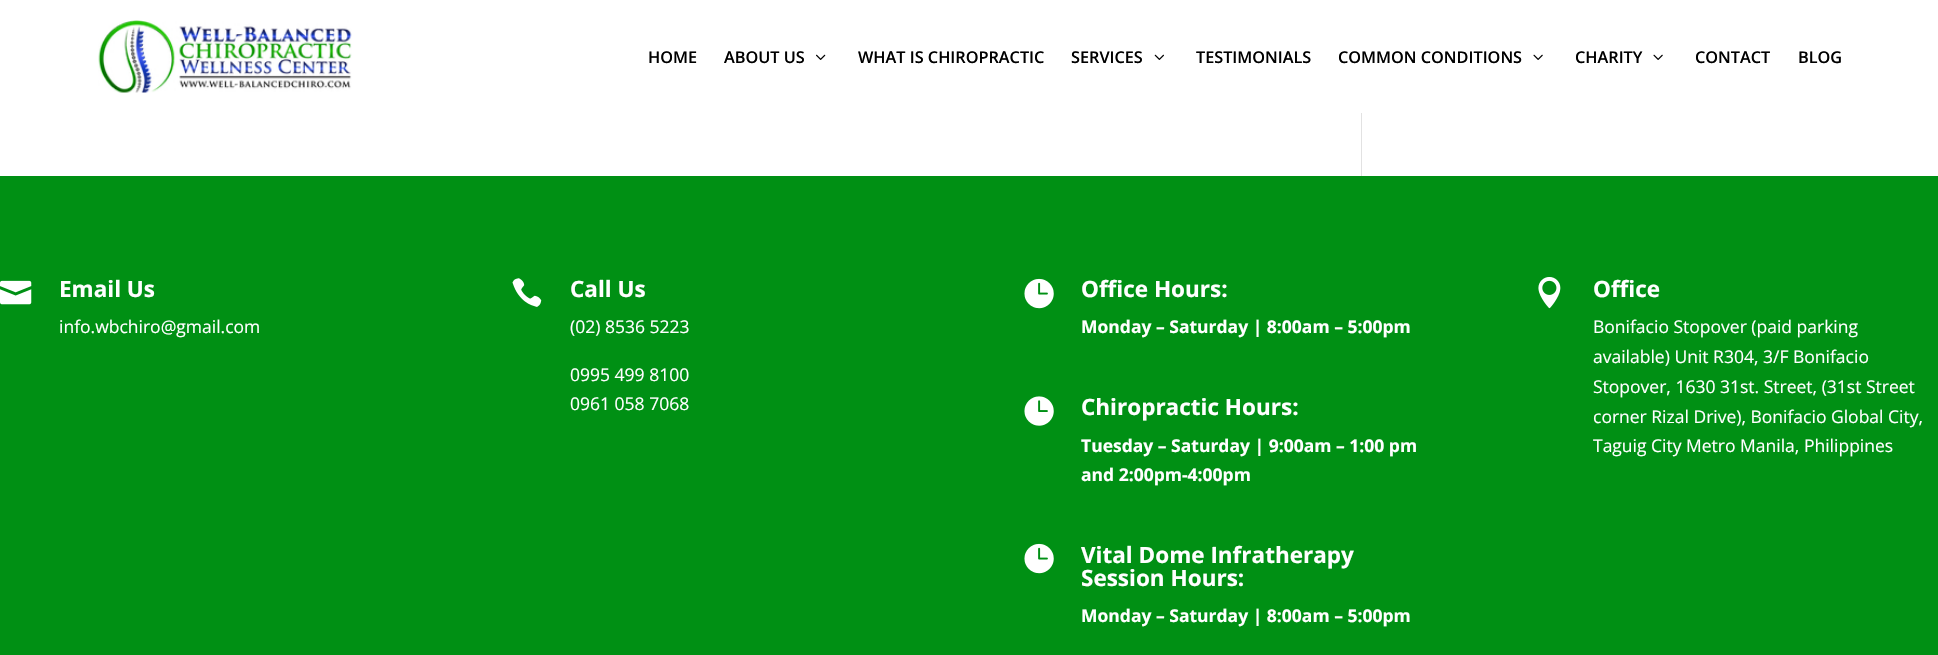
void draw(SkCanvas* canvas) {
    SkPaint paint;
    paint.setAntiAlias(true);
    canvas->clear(0xFFFFFFFF);
    canvas->drawImageRect(SkImages::DeferredFromEncodedData(SkData::MakeFromFileName("img1.png")), SkRect::MakeXYWH(98, 20, 254, 73), SkSamplingOptions());
    SkFont font1(fontMgr->matchFamilyStyle("Open Sans", SkFontStyle(600, SkFontStyle::kNormal_Width, SkFontStyle::kUpright_Slant)), 16.25f);
    font1.setSubpixel(true);
    paint.setColor(0xFF000000);
    canvas->drawString("HOME", 648, 63, font1, paint);
    canvas->drawString("ABOUT US", 724, 63, font1, paint);
    canvas->drawImageRect(SkImages::DeferredFromEncodedData(SkData::MakeFromFileName("img2.png")), SkRect::MakeXYWH(816, 54, 10, 6), SkSamplingOptions());
    canvas->drawString("WHAT IS CHIROPRACTIC", 858, 63, font1, paint);
    canvas->drawString("SERVICES", 1071, 63, font1, paint);
    canvas->drawImageRect(SkImages::DeferredFromEncodedData(SkData::MakeFromFileName("img3.png")), SkRect::MakeXYWH(1154, 54, 10, 6), SkSamplingOptions());
    canvas->drawString("TESTIMONIALS", 1196, 63, font1, paint);
    canvas->drawString("COMMON CONDITIONS", 1338, 63, font1, paint);
    canvas->drawImageRect(SkImages::DeferredFromEncodedData(SkData::MakeFromFileName("img4.png")), SkRect::MakeXYWH(1533, 54, 10, 6), SkSamplingOptions());
    canvas->drawString("CHARITY", 1575, 63, font1, paint);
    canvas->drawImageRect(SkImages::DeferredFromEncodedData(SkData::MakeFromFileName("img4.png")), SkRect::MakeXYWH(1653, 54, 10, 6), SkSamplingOptions());
    canvas->drawString("CONTACT", 1695, 63, font1, paint);
    canvas->drawString("BLOG", 1798, 63, font1, paint);
    paint.setColor(0xFFE2E2E2);
    canvas->drawRect(SkRect::MakeXYWH(1361, 113, 1, 63), paint);
    paint.setColor(0xFF009014);
    canvas->drawRect(SkRect::MakeXYWH(0, 176, 1938, 479), paint);
    canvas->drawImageRect(SkImages::DeferredFromEncodedData(SkData::MakeFromFileName("img5.png")), SkRect::MakeXYWH(0, 280, 32, 25), SkSamplingOptions());
    SkFont font2(fontMgr->matchFamilyStyle("Open Sans", SkFontStyle::Bold()), 22.5f);
    font2.setSubpixel(true);
    paint.setColor(0xFFFFFFFF);
    canvas->drawString("Email Us", 59, 297, font2, paint);
    SkFont font3(fontMgr->matchFamilyStyle("Open Sans", SkFontStyle::Normal()), 17.5f);
    font3.setSubpixel(true);
    canvas->drawString("info.wbchiro@gmail.com", 59, 333, font3, paint);
    canvas->drawImageRect(SkImages::DeferredFromEncodedData(SkData::MakeFromFileName("img6.png")), SkRect::MakeXYWH(512, 278, 30, 29), SkSamplingOptions());
    canvas->drawString("Call Us", 570, 297, font2, paint);
    canvas->drawString("(02) 8536 5223", 570, 333, font3, paint);
    canvas->drawString("0995 499 8100", 570, 381, font3, paint);
    canvas->drawString("0961 058 7068", 570, 410, font3, paint);
    canvas->drawImageRect(SkImages::DeferredFromEncodedData(SkData::MakeFromFileName("img7.png")), SkRect::MakeXYWH(1024, 278, 30, 31), SkSamplingOptions());
    canvas->drawString("Office Hours:", 1081, 297, font2, paint);
    SkFont font4(fontMgr->matchFamilyStyle("Open Sans", SkFontStyle::Bold()), 17.5f);
    font4.setSubpixel(true);
    canvas->drawString("Monday – Saturday | 8:00am – 5:00pm", 1081, 333, font4, paint);
    canvas->drawImageRect(SkImages::DeferredFromEncodedData(SkData::MakeFromFileName("img8.png")), SkRect::MakeXYWH(1024, 396, 30, 30), SkSamplingOptions());
    canvas->drawString("Chiropractic Hours:", 1081, 415, font2, paint);
    canvas->drawString("Tuesday – Saturday | 9:00am – 1:00 pm", 1081, 452, font4, paint);
    canvas->drawString("and 2:00pm-4:00pm", 1081, 481, font4, paint);
    canvas->drawImageRect(SkImages::DeferredFromEncodedData(SkData::MakeFromFileName("img7.png")), SkRect::MakeXYWH(1024, 543, 30, 31), SkSamplingOptions());
    canvas->drawString("Vital Dome Infratherapy", 1081, 563, font2, paint);
    canvas->drawString("Session Hours:", 1081, 586, font2, paint);
    canvas->drawString("Monday – Saturday | 8:00am – 5:00pm", 1081, 622, font4, paint);
    canvas->drawImageRect(SkImages::DeferredFromEncodedData(SkData::MakeFromFileName("img9.png")), SkRect::MakeXYWH(1538, 277, 23, 32), SkSamplingOptions());
    canvas->drawString("Office", 1593, 297, font2, paint);
    canvas->drawString("Bonifacio Stopover (paid parking", 1593, 333, font3, paint);
    canvas->drawString("available) Unit R304, 3/F Bonifacio", 1593, 363, font3, paint);
    canvas->drawString("Stopover, 1630 31st. Street, (31st Street", 1593, 393, font3, paint);
    canvas->drawString("corner Rizal Drive), Bonifacio Global City,", 1593, 423, font3, paint);
    canvas->drawString("Taguig City Metro Manila, Philippines", 1593, 452, font3, paint);
}
